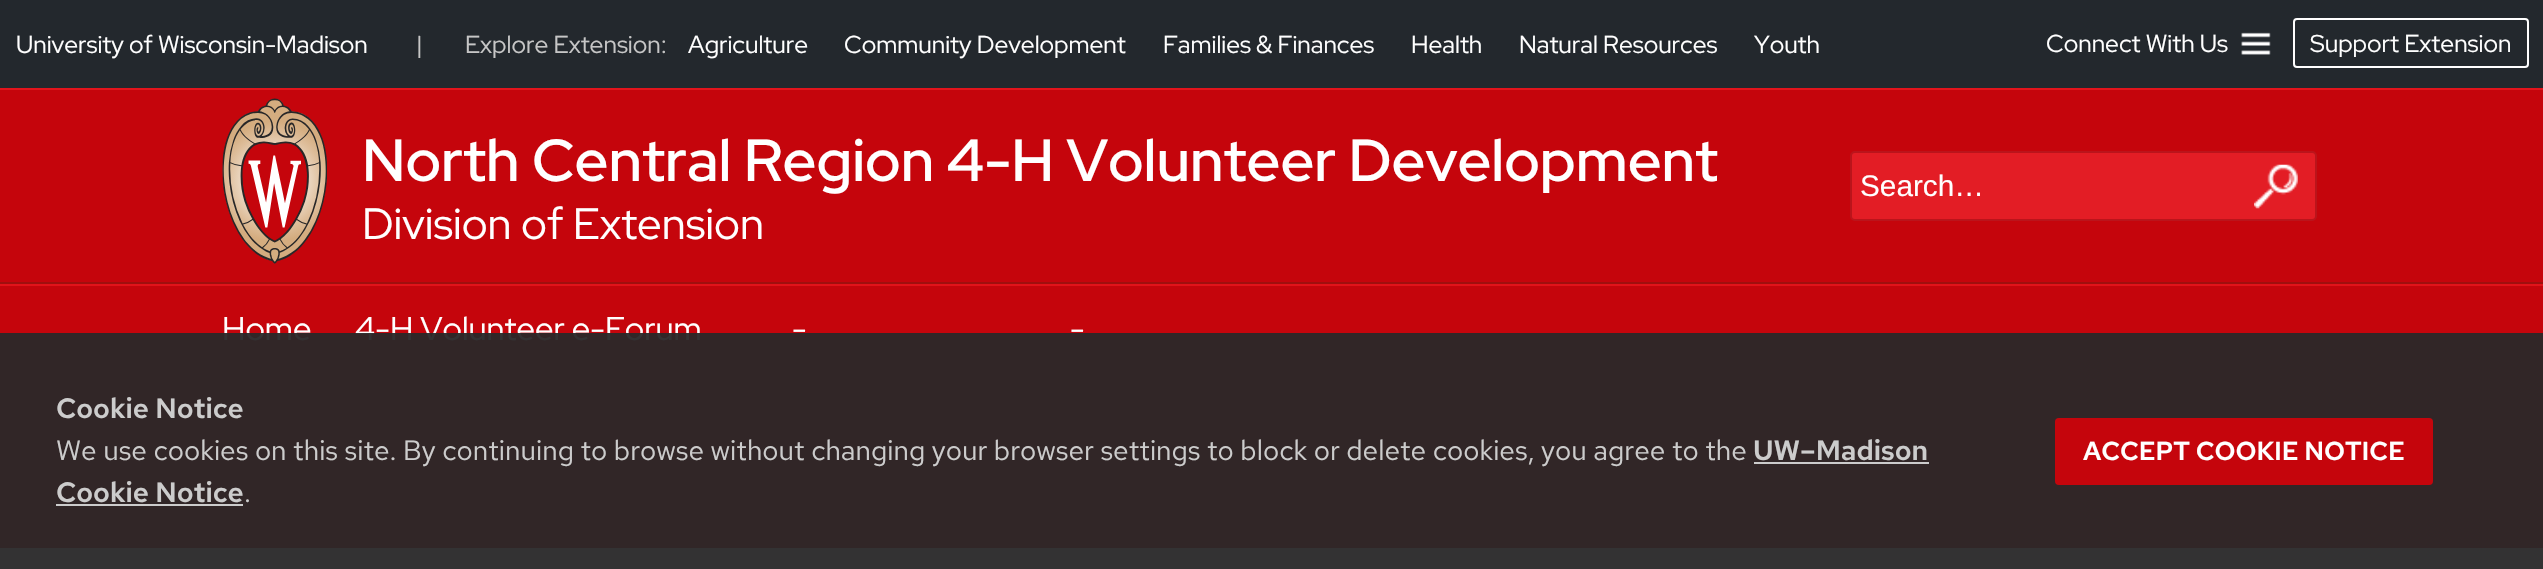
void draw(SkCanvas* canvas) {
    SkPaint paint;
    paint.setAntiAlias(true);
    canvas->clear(0xFFF3F2F2);
    paint.setColor(0xFF23282D);
    canvas->drawRect(SkRect::MakeXYWH(0, 0, 2543, 88), paint);
    SkFont font1(fontMgr->matchFamilyStyle("Red Hat Display", SkFontStyle::Normal()), 24.5f);
    font1.setSubpixel(true);
    paint.setColor(0xFFFFFFFF);
    canvas->drawString("University of Wisconsin-Madison", 16, 53, font1, paint);
    paint.setColor(0xFFC6C6C6);
    canvas->drawString("|", 416, 53, font1, paint);
    canvas->drawString("Explore Extension:", 465, 53, font1, paint);
    paint.setColor(0xFFFFFFFF);
    canvas->drawString("Agriculture", 688, 53, font1, paint);
    canvas->drawString("Community Development", 844, 53, font1, paint);
    canvas->drawString("Families & Finances", 1163, 53, font1, paint);
    canvas->drawString("Health", 1411, 53, font1, paint);
    canvas->drawString("Natural Resources", 1519, 53, font1, paint);
    canvas->drawString("Youth", 1754, 53, font1, paint);
    canvas->drawImageRect(SkImages::DeferredFromEncodedData(SkData::MakeFromFileName("img1.png")), SkRect::MakeXYWH(2241, 32, 30, 23), SkSamplingOptions());
    canvas->drawString("Connect With Us", 2046, 52, font1, paint);
    paint.setStyle(SkPaint::kStroke_Style);
    paint.setStrokeWidth(2);
    canvas->drawRoundRect(SkRect::MakeXYWH(2294, 19, 234, 48), 3, 3, paint);
    paint.setStyle(SkPaint::kFill_Style);
    canvas->drawString("Support Extension", 2310, 52, font1, paint);
    paint.setColor(0xFFC5050C);
    canvas->drawRect(SkRect::MakeXYWH(0, 90, 2543, 192), paint);
    paint.setColor(0xFFE2141C);
    canvas->drawRect(SkRect::MakeXYWH(0, 88, 2543, 2), paint);
    paint.setColor(0xFFA00F0E);
    canvas->drawRect(SkRect::MakeXYWH(0, 282, 2543, 2), paint);
    canvas->drawImageRect(SkImages::DeferredFromEncodedData(SkData::MakeFromFileName("img2.png")), SkRect::MakeXYWH(222, 98, 105, 166), SkSamplingOptions());
    SkFont font2(fontMgr->matchFamilyStyle("Red Hat Display", SkFontStyle(600, SkFontStyle::kNormal_Width, SkFontStyle::kUpright_Slant)), 59.15f);
    font2.setSubpixel(true);
    paint.setColor(0xFFFFFFFF);
    canvas->drawString("North Central Region 4-H Volunteer Development", 362, 181, font2, paint);
    SkFont font3(fontMgr->matchFamilyStyle("Red Hat Display", SkFontStyle::Normal()), 43.75f);
    font3.setSubpixel(true);
    canvas->drawString("Division of Extension", 362, 239, font3, paint);
    paint.setColor(0xFFE31D25);
    canvas->drawRoundRect(SkRect::MakeXYWH(1851, 152, 465, 68), 4, 4, paint);
    paint.setStyle(SkPaint::kStroke_Style);
    paint.setColor(0xFFBB141B);
    canvas->drawRoundRect(SkRect::MakeXYWH(1851, 152, 465, 68), 4, 4, paint);
    SkFont font4(fontMgr->matchFamilyStyle("Liberation Sans", SkFontStyle::Normal()), 29.75f);
    font4.setSubpixel(true);
    paint.setStyle(SkPaint::kFill_Style);
    paint.setColor(0xFFFFFFFF);
    canvas->drawString("Search…", 1860, 196, font4, paint);
    canvas->drawImageRect(SkImages::DeferredFromEncodedData(SkData::MakeFromFileName("img3.png")), SkRect::MakeXYWH(2254, 164, 44, 45), SkSamplingOptions());
    paint.setColor(0xFFC5050C);
    canvas->drawRect(SkRect::MakeXYWH(0, 286, 2543, 262), paint);
    paint.setColor(0xFFE2131A);
    canvas->drawRect(SkRect::MakeXYWH(0, 284, 2543, 2), paint);
    SkFont font5(fontMgr->matchFamilyStyle("Red Hat Display", SkFontStyle::Normal()), 32.75f);
    font5.setSubpixel(true);
    paint.setColor(0xFFFFFFFF);
    canvas->drawString("Home", 222, 340, font5, paint);
    canvas->drawString("4-H Volunteer e-Forum", 355, 340, font5, paint);
    canvas->drawString("-", 792, 340, font5, paint);
    canvas->drawString("-", 1070, 340, font5, paint);
    canvas->drawRect(SkRect::MakeXYWH(187, 548, 2170, 21), paint);
    paint.setColor(0xF2282728);
    canvas->drawRect(SkRect::MakeXYWH(0, 333, 2543, 236), paint);
    SkFont font6(fontMgr->matchFamilyStyle("Red Hat Text", SkFontStyle(600, SkFontStyle::kNormal_Width, SkFontStyle::kUpright_Slant)), 28);
    font6.setSubpixel(true);
    paint.setColor(0xFFCCCCCC);
    canvas->drawString("Cookie Notice", 56, 418, font6, paint);
    SkFont font7(fontMgr->matchFamilyStyle("Red Hat Text", SkFontStyle::Normal()), 28);
    font7.setSubpixel(true);
    canvas->drawString("We use cookies on this site. By continuing to browse without changing your browser settings to block or delete cookies, you agree to the", 56, 460, font7, paint);
    canvas->drawString("UW–Madison", 1753, 460, font6, paint);
    canvas->drawRect(SkRect::MakeXYWH(1754, 462, 175, 2), paint);
    canvas->drawString("Cookie Notice", 56, 502, font6, paint);
    canvas->drawRect(SkRect::MakeXYWH(56, 504, 187, 2), paint);
    canvas->drawString(".", 244, 502, font7, paint);
    paint.setColor(0xFFC5050C);
    canvas->drawRoundRect(SkRect::MakeXYWH(2055, 418, 378, 67), 4, 4, paint);
    SkFont font8(fontMgr->matchFamilyStyle("Red Hat Text", SkFontStyle(600, SkFontStyle::kNormal_Width, SkFontStyle::kUpright_Slant)), 25.9f);
    font8.setSubpixel(true);
    paint.setColor(0xFFFFFFFF);
    canvas->drawString("ACCEPT COOKIE NOTICE", 2083, 460, font8, paint);
}
